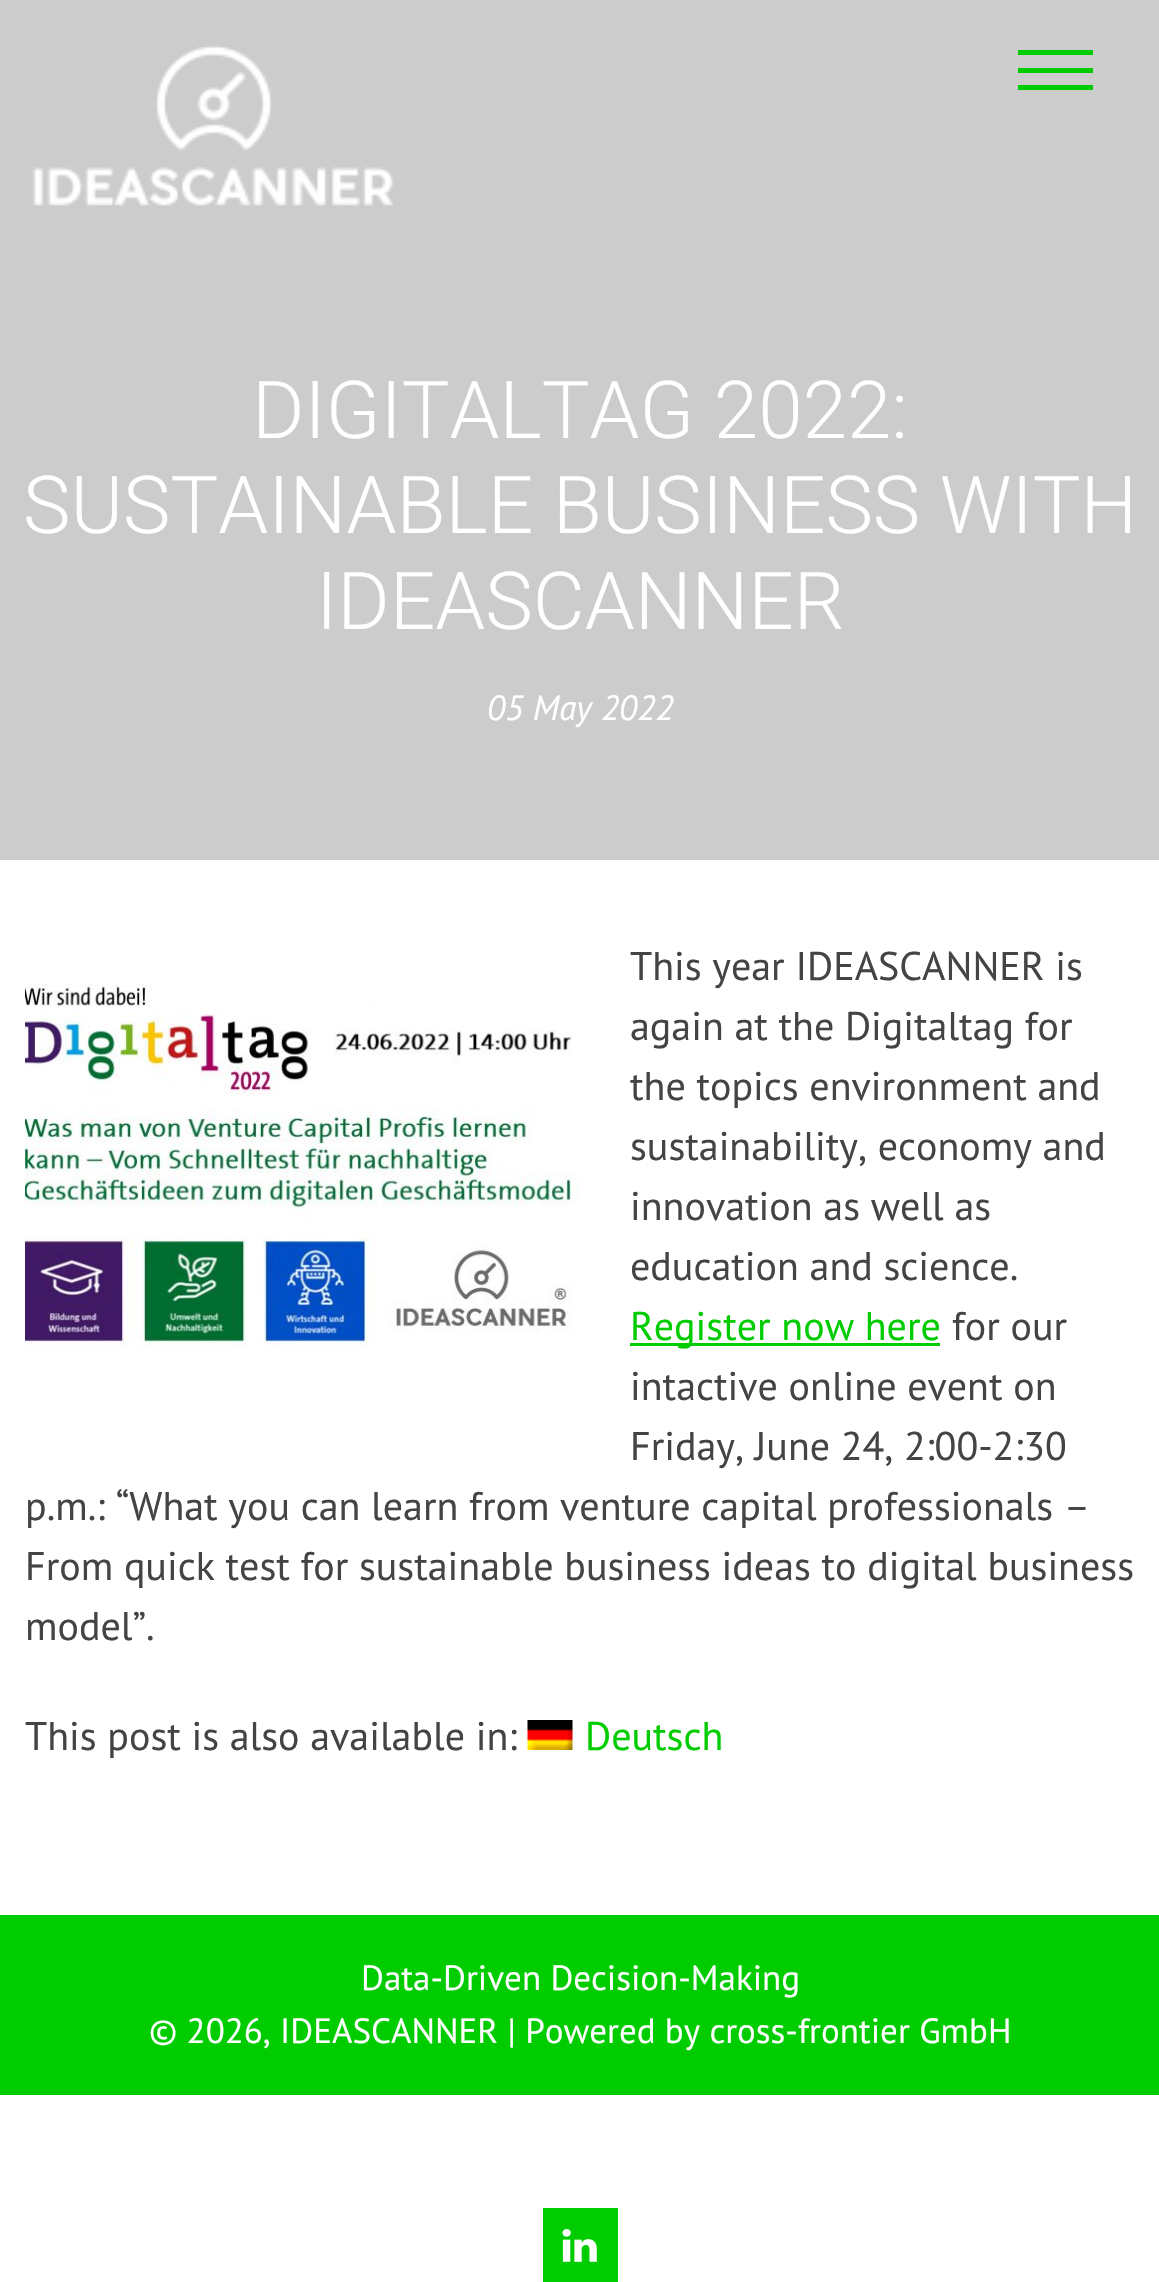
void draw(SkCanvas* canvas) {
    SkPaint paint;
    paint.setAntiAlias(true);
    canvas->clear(0xFFFFFFFF);
    paint.setColor(0xFFCCCCCC);
    canvas->drawRect(SkRect::MakeXYWH(0, 0, 1159, 860), paint);
    canvas->drawImageRect(SkImages::DeferredFromEncodedData(SkData::MakeFromFileName("img1.png")), SkRect::MakeXYWH(32, 45, 362, 161), SkSamplingOptions());
    paint.setColor(0xFF00CC00);
    canvas->drawRect(SkRect::MakeXYWH(1018, 50, 75, 5), paint);
    canvas->drawRect(SkRect::MakeXYWH(1018, 68, 75, 5), paint);
    canvas->drawRect(SkRect::MakeXYWH(1018, 85, 75, 5), paint);
    canvas->drawRect(SkRect::MakeXYWH(543, 2208, 75, 74), paint);
    canvas->drawImageRect(SkImages::DeferredFromEncodedData(SkData::MakeFromFileName("img2.png")), SkRect::MakeXYWH(562, 2229, 35, 33), SkSamplingOptions());
    SkFont font1(fontMgr->matchFamilyStyle("Roboto", SkFontStyle(300, SkFontStyle::kNormal_Width, SkFontStyle::kUpright_Slant)), 80);
    font1.setSubpixel(true);
    paint.setColor(0xFFFFFFFF);
    canvas->drawString("DIGITALTAG 2022:", 252, 438, font1, paint);
    canvas->drawString("SUSTAINABLE BUSINESS WITH", 23, 533, font1, paint);
    canvas->drawString("IDEASCANNER", 316, 629, font1, paint);
    SkFont font2(fontMgr->matchFamilyStyle("PT Sans", SkFontStyle::Italic()), 35);
    font2.setSubpixel(true);
    canvas->drawString("05 May 2022", 487, 720, font2, paint);
    SkFont font3(fontMgr->matchFamilyStyle("PT Sans", SkFontStyle::Normal()), 40);
    font3.setSubpixel(true);
    paint.setColor(0xFF444444);
    canvas->drawString("This year IDEASCANNER is", 630, 980, font3, paint);
    canvas->drawString("again at the Digitaltag for", 630, 1040, font3, paint);
    canvas->drawString("the topics environment and", 630, 1100, font3, paint);
    canvas->drawString("sustainability, economy and", 630, 1160, font3, paint);
    canvas->drawString("innovation as well as", 630, 1220, font3, paint);
    canvas->drawString("education and science.", 630, 1280, font3, paint);
    paint.setColor(0xFF00CC00);
    canvas->drawRect(SkRect::MakeXYWH(630, 1343, 310, 3), paint);
    canvas->drawString("Register now here", 630, 1340, font3, paint);
    paint.setColor(0xFF444444);
    canvas->drawString("for our", 952, 1340, font3, paint);
    canvas->drawString("intactive online event on", 630, 1400, font3, paint);
    canvas->drawString("Friday, June 24, 2:00-2:30", 630, 1460, font3, paint);
    canvas->drawString("p.m.: “What you can learn from venture capital professionals –", 25, 1520, font3, paint);
    canvas->drawString("From quick test for sustainable business ideas to digital business", 25, 1580, font3, paint);
    canvas->drawString("model”.", 25, 1640, font3, paint);
    canvas->drawString("This post is also available in:", 25, 1750, font3, paint);
    canvas->drawImageRect(SkImages::DeferredFromEncodedData(SkData::MakeFromFileName("img3.png")), SkRect::MakeXYWH(527, 1720, 46, 30), SkSamplingOptions());
    paint.setColor(0xFF00CC00);
    canvas->drawString("Deutsch", 585, 1750, font3, paint);
    canvas->drawImageRect(SkImages::DeferredFromEncodedData(SkData::MakeFromFileName("img4.png")), SkRect::MakeXYWH(25, 983, 555, 366), SkSamplingOptions());
    canvas->drawRect(SkRect::MakeXYWH(0, 1915, 1159, 180), paint);
    SkFont font4(fontMgr->matchFamilyStyle("PT Sans", SkFontStyle::Normal()), 35);
    font4.setSubpixel(true);
    paint.setColor(0xFFFFFFFF);
    canvas->drawString("Data-Driven Decision-Making", 361, 1990, font4, paint);
    canvas->drawString("© 2026, IDEASCANNER | Powered by cross-frontier GmbH", 149, 2043, font4, paint);
}
